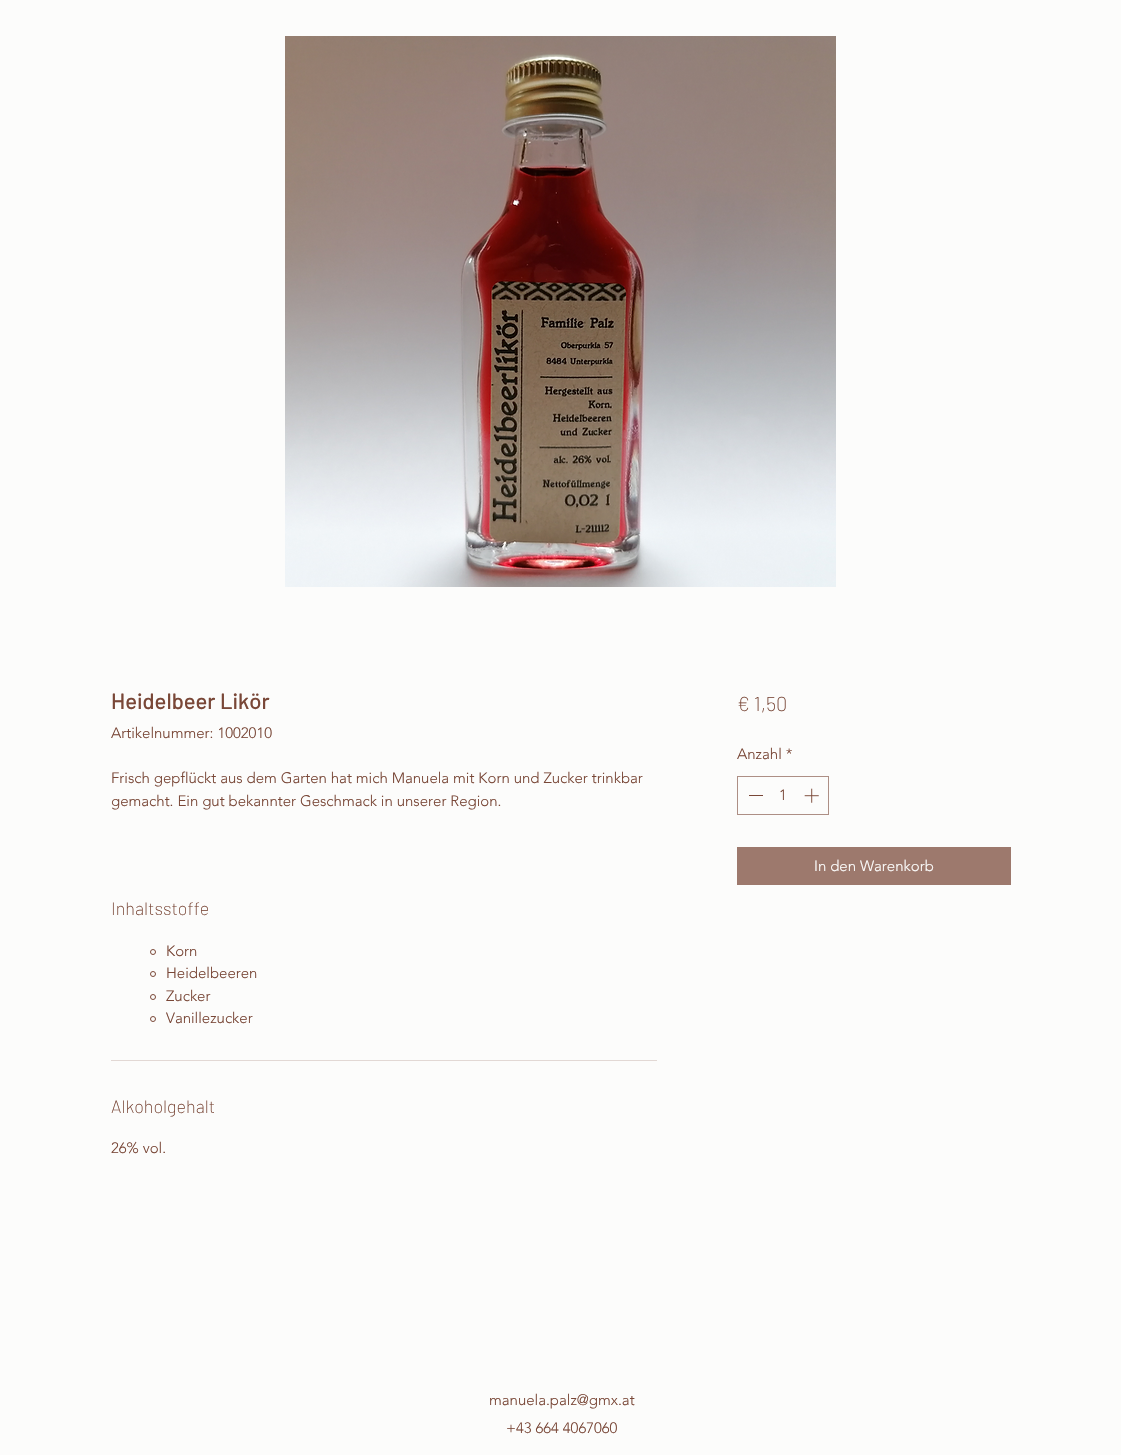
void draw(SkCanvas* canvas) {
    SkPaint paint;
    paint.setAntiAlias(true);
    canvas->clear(0xFFFCFCFB);
    canvas->drawImageRect(SkImages::DeferredFromEncodedData(SkData::MakeFromFileName("img1.png")), SkRect::MakeXYWH(285, 36, 551, 551), SkSamplingOptions());
    SkFont font1(fontMgr->matchFamilyStyle("Barlow", SkFontStyle(500, SkFontStyle::kNormal_Width, SkFontStyle::kUpright_Slant)), 22);
    font1.setSubpixel(true);
    paint.setColor(0xFF794737);
    canvas->drawString("Heidelbeer Likör", 111, 709, font1, paint);
    SkFont font2(fontMgr->matchFamilyStyle("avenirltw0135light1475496", SkFontStyle(300, SkFontStyle::kNormal_Width, SkFontStyle::kUpright_Slant)), 15);
    font2.setSubpixel(true);
    canvas->drawString("Artikelnummer: 1002010", 111, 738, font2, paint);
    canvas->drawString("Frisch gepflückt aus dem Garten hat mich Manuela mit Korn und Zucker trinkbar", 111, 783, font2, paint);
    canvas->drawString("gemacht. Ein gut bekannter Geschmack in unserer Region.", 111, 806, font2, paint);
    paint.setColor(0xFFE2D8D4);
    canvas->drawRect(SkRect::MakeXYWH(111, 1060, 546, 1), paint);
    SkFont font3(fontMgr->matchFamilyStyle("Barlow", SkFontStyle(200, SkFontStyle::kNormal_Width, SkFontStyle::kUpright_Slant)), 18);
    font3.setSubpixel(true);
    paint.setColor(0xFF794737);
    canvas->drawString("Inhaltsstoffe", 111, 915, font3, paint);
    paint.setStyle(SkPaint::kStroke_Style);
    paint.setStrokeWidth(1);
    canvas->drawCircle(153, 952, 2.5f, paint);
    paint.setStyle(SkPaint::kFill_Style);
    canvas->drawString("Korn", 166, 956, font2, paint);
    paint.setStyle(SkPaint::kStroke_Style);
    canvas->drawCircle(153, 974, 2.5f, paint);
    paint.setStyle(SkPaint::kFill_Style);
    canvas->drawString("Heidelbeeren", 166, 978, font2, paint);
    paint.setStyle(SkPaint::kStroke_Style);
    canvas->drawCircle(153, 997, 2.5f, paint);
    paint.setStyle(SkPaint::kFill_Style);
    canvas->drawString("Zucker", 166, 1001, font2, paint);
    paint.setStyle(SkPaint::kStroke_Style);
    canvas->drawCircle(153, 1019, 2.5f, paint);
    paint.setStyle(SkPaint::kFill_Style);
    canvas->drawString("Vanillezucker", 166, 1023, font2, paint);
    canvas->drawString("Alkoholgehalt", 111, 1113, font3, paint);
    canvas->drawString("26% vol.", 111, 1153, font2, paint);
    SkFont font4(fontMgr->matchFamilyStyle("Barlow", SkFontStyle(200, SkFontStyle::kNormal_Width, SkFontStyle::kUpright_Slant)), 20);
    font4.setSubpixel(true);
    canvas->drawString("€ 1,50", 737, 711, font4, paint);
    canvas->drawString("Anzahl *", 737, 759, font2, paint);
    paint.setStyle(SkPaint::kStroke_Style);
    paint.setColor(0xFFAD8F85);
    canvas->drawRect(SkRect::MakeXYWH(737.5f, 776.5f, 91, 38), paint);
    paint.setStyle(SkPaint::kFill_Style);
    paint.setColor(0xFF794737);
    canvas->drawRect(SkRect::MakeXYWH(749, 795, 14, 1), paint);
    canvas->drawString("1", 779, 800, font2, paint);
    canvas->drawImageRect(SkImages::DeferredFromEncodedData(SkData::MakeFromFileName("img2.png")), SkRect::MakeXYWH(804, 788, 15, 15), SkSamplingOptions());
    paint.setColor(0xFF9D796D);
    canvas->drawRect(SkRect::MakeXYWH(737, 847, 274, 38), paint);
    paint.setColor(0xFFFCFCFB);
    canvas->drawString("In den Warenkorb", 814, 871, font2, paint);
    paint.setColor(0xFF794737);
    canvas->drawString("manuela.palz@gmx.at", 489, 1405, font2, paint);
    canvas->drawString("+43 664 4067060", 506, 1433, font2, paint);
}
